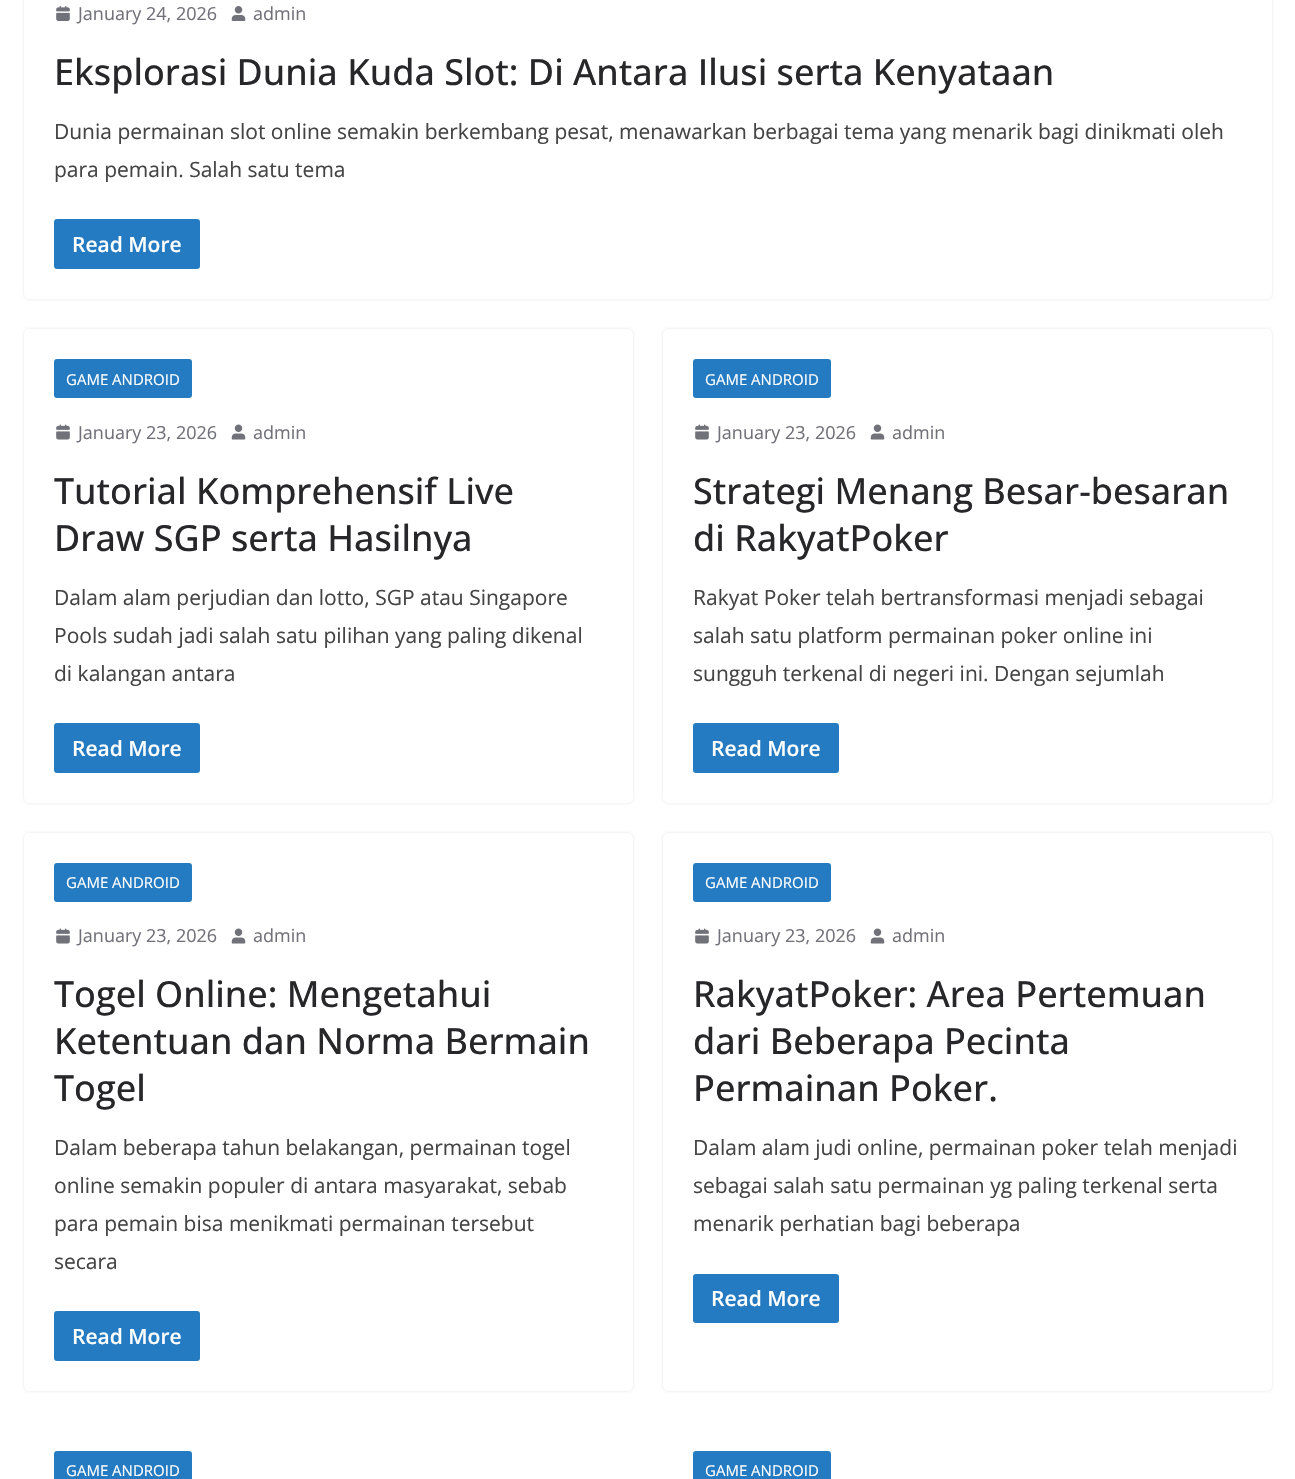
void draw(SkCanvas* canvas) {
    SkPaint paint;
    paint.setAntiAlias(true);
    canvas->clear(0xFFFFFFFF);
    canvas->save();
    canvas->clipPath(SkPathBuilder(SkPathFillType::kEvenOdd).moveTo(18, 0).lineTo(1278, 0).lineTo(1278, 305).lineTo(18, 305).close().moveTo(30, -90).lineTo(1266, -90).cubicTo(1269.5f, -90, 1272, -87.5f, 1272, -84).lineTo(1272, 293).cubicTo(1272, 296.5f, 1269.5f, 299, 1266, 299).lineTo(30, 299).cubicTo(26.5f, 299, 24, 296.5f, 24, 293).lineTo(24, -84).cubicTo(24, -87.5f, 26.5f, -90, 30, -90).close().detach(), true);
    paint.setColor(0xFFE4E4E7);
    paint.setMaskFilter(SkMaskFilter::MakeBlur(kNormal_SkBlurStyle, 1.5f));
    canvas->drawRoundRect(SkRect::MakeXYWH(24, -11, 1248, 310), 6, 6, paint);
    paint.setMaskFilter(nullptr);
    canvas->restore();
    canvas->drawImageRect(SkImages::DeferredFromEncodedData(SkData::MakeFromFileName("img1.png")), SkRect::MakeXYWH(56, 6, 14, 15), SkSamplingOptions());
    SkFont font1(fontMgr->matchFamilyStyle("Open Sans", SkFontStyle::Normal()), 18);
    font1.setSubpixel(true);
    paint.setColor(0xFF71717A);
    canvas->drawString("January 24, 2026", 78, 20, font1, paint);
    canvas->drawImageRect(SkImages::DeferredFromEncodedData(SkData::MakeFromFileName("img2.png")), SkRect::MakeXYWH(231, 6, 15, 15), SkSamplingOptions());
    canvas->drawString("admin", 253, 20, font1, paint);
    SkFont font2(fontMgr->matchFamilyStyle("Open Sans", SkFontStyle(500, SkFontStyle::kNormal_Width, SkFontStyle::kUpright_Slant)), 36);
    font2.setSubpixel(true);
    paint.setColor(0xFF27272A);
    canvas->drawString("Eksplorasi Dunia Kuda Slot: Di Antara Ilusi serta Kenyataan", 54, 85, font2, paint);
    SkFont font3(fontMgr->matchFamilyStyle("Open Sans", SkFontStyle::Normal()), 21);
    font3.setSubpixel(true);
    paint.setColor(0xFF444444);
    canvas->drawString("Dunia permainan slot online semakin berkembang pesat, menawarkan berbagai tema yang menarik bagi dinikmati oleh", 54, 139, font3, paint);
    canvas->drawString("para pemain. Salah satu tema", 54, 177, font3, paint);
    paint.setColor(0xFF257BC1);
    canvas->drawRoundRect(SkRect::MakeXYWH(54, 219, 146, 50), 3, 3, paint);
    SkFont font4(fontMgr->matchFamilyStyle("Open Sans", SkFontStyle(600, SkFontStyle::kNormal_Width, SkFontStyle::kUpright_Slant)), 21);
    font4.setSubpixel(true);
    paint.setColor(0xFFFFFFFF);
    canvas->drawString("Read More", 72, 252, font4, paint);
    canvas->save();
    canvas->clipPath(SkPathBuilder(SkPathFillType::kEvenOdd).moveTo(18, 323).lineTo(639, 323).lineTo(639, 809).lineTo(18, 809).close().moveTo(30, 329).lineTo(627, 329).cubicTo(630.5f, 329, 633, 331.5f, 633, 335).lineTo(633, 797).cubicTo(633, 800.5f, 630.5f, 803, 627, 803).lineTo(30, 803).cubicTo(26.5f, 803, 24, 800.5f, 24, 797).lineTo(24, 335).cubicTo(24, 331.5f, 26.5f, 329, 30, 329).close().detach(), true);
    paint.setColor(0xFFE4E4E7);
    paint.setMaskFilter(SkMaskFilter::MakeBlur(kNormal_SkBlurStyle, 1.5f));
    canvas->drawRoundRect(SkRect::MakeXYWH(24, 329, 609, 474), 6, 6, paint);
    paint.setMaskFilter(nullptr);
    canvas->restore();
    paint.setColor(0xFF257BC1);
    canvas->drawRoundRect(SkRect::MakeXYWH(54, 359, 138, 39), 3, 3, paint);
    SkFont font5(fontMgr->matchFamilyStyle("Open Sans", SkFontStyle::Normal()), 15);
    font5.setSubpixel(true);
    paint.setColor(0xFFFFFFFF);
    canvas->drawString("GAME ANDROID", 66, 385, font5, paint);
    canvas->drawImageRect(SkImages::DeferredFromEncodedData(SkData::MakeFromFileName("img3.png")), SkRect::MakeXYWH(56, 424, 14, 16), SkSamplingOptions());
    paint.setColor(0xFF71717A);
    canvas->drawString("January 23, 2026", 78, 439, font1, paint);
    canvas->drawImageRect(SkImages::DeferredFromEncodedData(SkData::MakeFromFileName("img4.png")), SkRect::MakeXYWH(231, 424, 15, 16), SkSamplingOptions());
    canvas->drawString("admin", 253, 439, font1, paint);
    paint.setColor(0xFF27272A);
    canvas->drawString("Tutorial Komprehensif Live", 54, 504, font2, paint);
    canvas->drawString("Draw SGP serta Hasilnya", 54, 551, font2, paint);
    paint.setColor(0xFF444444);
    canvas->drawString("Dalam alam perjudian dan lotto, SGP atau Singapore", 54, 605, font3, paint);
    canvas->drawString("Pools sudah jadi salah satu pilihan yang paling dikenal", 54, 643, font3, paint);
    canvas->drawString("di kalangan antara", 54, 681, font3, paint);
    paint.setColor(0xFF257BC1);
    canvas->drawRoundRect(SkRect::MakeXYWH(54, 723, 146, 50), 3, 3, paint);
    paint.setColor(0xFFFFFFFF);
    canvas->drawString("Read More", 72, 756, font4, paint);
    canvas->save();
    canvas->clipPath(SkPathBuilder(SkPathFillType::kEvenOdd).moveTo(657, 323).lineTo(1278, 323).lineTo(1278, 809).lineTo(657, 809).close().moveTo(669, 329).lineTo(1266, 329).cubicTo(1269.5f, 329, 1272, 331.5f, 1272, 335).lineTo(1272, 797).cubicTo(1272, 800.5f, 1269.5f, 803, 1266, 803).lineTo(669, 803).cubicTo(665.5f, 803, 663, 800.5f, 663, 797).lineTo(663, 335).cubicTo(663, 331.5f, 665.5f, 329, 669, 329).close().detach(), true);
    paint.setColor(0xFFE4E4E7);
    paint.setMaskFilter(SkMaskFilter::MakeBlur(kNormal_SkBlurStyle, 1.5f));
    canvas->drawRoundRect(SkRect::MakeXYWH(663, 329, 609, 474), 6, 6, paint);
    paint.setMaskFilter(nullptr);
    canvas->restore();
    paint.setColor(0xFF257BC1);
    canvas->drawRoundRect(SkRect::MakeXYWH(693, 359, 138, 39), 3, 3, paint);
    paint.setColor(0xFFFFFFFF);
    canvas->drawString("GAME ANDROID", 705, 385, font5, paint);
    canvas->drawImageRect(SkImages::DeferredFromEncodedData(SkData::MakeFromFileName("img3.png")), SkRect::MakeXYWH(695, 424, 14, 16), SkSamplingOptions());
    paint.setColor(0xFF71717A);
    canvas->drawString("January 23, 2026", 717, 439, font1, paint);
    canvas->drawImageRect(SkImages::DeferredFromEncodedData(SkData::MakeFromFileName("img4.png")), SkRect::MakeXYWH(870, 424, 15, 16), SkSamplingOptions());
    canvas->drawString("admin", 892, 439, font1, paint);
    paint.setColor(0xFF27272A);
    canvas->drawString("Strategi Menang Besar-besaran", 693, 504, font2, paint);
    canvas->drawString("di RakyatPoker", 693, 551, font2, paint);
    paint.setColor(0xFF444444);
    canvas->drawString("Rakyat Poker telah bertransformasi menjadi sebagai", 693, 605, font3, paint);
    canvas->drawString("salah satu platform permainan poker online ini", 693, 643, font3, paint);
    canvas->drawString("sungguh terkenal di negeri ini. Dengan sejumlah", 693, 681, font3, paint);
    paint.setColor(0xFF257BC1);
    canvas->drawRoundRect(SkRect::MakeXYWH(693, 723, 146, 50), 3, 3, paint);
    paint.setColor(0xFFFFFFFF);
    canvas->drawString("Read More", 711, 756, font4, paint);
    canvas->save();
    canvas->clipPath(SkPathBuilder(SkPathFillType::kEvenOdd).moveTo(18, 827).lineTo(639, 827).lineTo(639, 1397).lineTo(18, 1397).close().moveTo(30, 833).lineTo(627, 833).cubicTo(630.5f, 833, 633, 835.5f, 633, 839).lineTo(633, 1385).cubicTo(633, 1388.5f, 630.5f, 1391, 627, 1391).lineTo(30, 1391).cubicTo(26.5f, 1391, 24, 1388.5f, 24, 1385).lineTo(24, 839).cubicTo(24, 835.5f, 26.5f, 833, 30, 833).close().detach(), true);
    paint.setColor(0xFFE4E4E7);
    paint.setMaskFilter(SkMaskFilter::MakeBlur(kNormal_SkBlurStyle, 1.5f));
    canvas->drawRoundRect(SkRect::MakeXYWH(24, 833, 609, 558), 6, 6, paint);
    paint.setMaskFilter(nullptr);
    canvas->restore();
    paint.setColor(0xFF257BC1);
    canvas->drawRoundRect(SkRect::MakeXYWH(54, 863, 138, 39), 3, 3, paint);
    paint.setColor(0xFFFFFFFF);
    canvas->drawString("GAME ANDROID", 66, 888, font5, paint);
    canvas->drawImageRect(SkImages::DeferredFromEncodedData(SkData::MakeFromFileName("img3.png")), SkRect::MakeXYWH(56, 928, 14, 16), SkSamplingOptions());
    paint.setColor(0xFF71717A);
    canvas->drawString("January 23, 2026", 78, 942, font1, paint);
    canvas->drawImageRect(SkImages::DeferredFromEncodedData(SkData::MakeFromFileName("img4.png")), SkRect::MakeXYWH(231, 928, 15, 16), SkSamplingOptions());
    canvas->drawString("admin", 253, 942, font1, paint);
    paint.setColor(0xFF27272A);
    canvas->drawString("Togel Online: Mengetahui", 54, 1007, font2, paint);
    canvas->drawString("Ketentuan dan Norma Bermain", 54, 1054, font2, paint);
    canvas->drawString("Togel", 54, 1101, font2, paint);
    paint.setColor(0xFF444444);
    canvas->drawString("Dalam beberapa tahun belakangan, permainan togel", 54, 1155, font3, paint);
    canvas->drawString("online semakin populer di antara masyarakat, sebab", 54, 1193, font3, paint);
    canvas->drawString("para pemain bisa menikmati permainan tersebut", 54, 1231, font3, paint);
    canvas->drawString("secara", 54, 1269, font3, paint);
    paint.setColor(0xFF257BC1);
    canvas->drawRoundRect(SkRect::MakeXYWH(54, 1311, 146, 50), 3, 3, paint);
    paint.setColor(0xFFFFFFFF);
    canvas->drawString("Read More", 72, 1344, font4, paint);
    canvas->save();
    canvas->clipPath(SkPathBuilder(SkPathFillType::kEvenOdd).moveTo(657, 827).lineTo(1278, 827).lineTo(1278, 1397).lineTo(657, 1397).close().moveTo(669, 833).lineTo(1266, 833).cubicTo(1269.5f, 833, 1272, 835.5f, 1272, 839).lineTo(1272, 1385).cubicTo(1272, 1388.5f, 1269.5f, 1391, 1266, 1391).lineTo(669, 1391).cubicTo(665.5f, 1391, 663, 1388.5f, 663, 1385).lineTo(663, 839).cubicTo(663, 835.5f, 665.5f, 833, 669, 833).close().detach(), true);
    paint.setColor(0xFFE4E4E7);
    paint.setMaskFilter(SkMaskFilter::MakeBlur(kNormal_SkBlurStyle, 1.5f));
    canvas->drawRoundRect(SkRect::MakeXYWH(663, 833, 609, 558), 6, 6, paint);
    paint.setMaskFilter(nullptr);
    canvas->restore();
    paint.setColor(0xFF257BC1);
    canvas->drawRoundRect(SkRect::MakeXYWH(693, 863, 138, 39), 3, 3, paint);
    paint.setColor(0xFFFFFFFF);
    canvas->drawString("GAME ANDROID", 705, 888, font5, paint);
    canvas->drawImageRect(SkImages::DeferredFromEncodedData(SkData::MakeFromFileName("img3.png")), SkRect::MakeXYWH(695, 928, 14, 16), SkSamplingOptions());
    paint.setColor(0xFF71717A);
    canvas->drawString("January 23, 2026", 717, 942, font1, paint);
    canvas->drawImageRect(SkImages::DeferredFromEncodedData(SkData::MakeFromFileName("img4.png")), SkRect::MakeXYWH(870, 928, 15, 16), SkSamplingOptions());
    canvas->drawString("admin", 892, 942, font1, paint);
    paint.setColor(0xFF27272A);
    canvas->drawString("RakyatPoker: Area Pertemuan", 693, 1007, font2, paint);
    canvas->drawString("dari Beberapa Pecinta", 693, 1054, font2, paint);
    canvas->drawString("Permainan Poker.", 693, 1101, font2, paint);
    paint.setColor(0xFF444444);
    canvas->drawString("Dalam alam judi online, permainan poker telah menjadi", 693, 1155, font3, paint);
    canvas->drawString("sebagai salah satu permainan yg paling terkenal serta", 693, 1193, font3, paint);
    canvas->drawString("menarik perhatian bagi beberapa", 693, 1231, font3, paint);
    paint.setColor(0xFF257BC1);
    canvas->drawRoundRect(SkRect::MakeXYWH(693, 1274, 146, 49), 3, 3, paint);
    paint.setColor(0xFFFFFFFF);
    canvas->drawString("Read More", 711, 1306, font4, paint);
    paint.setColor(0xFF257BC1);
    canvas->drawRoundRect(SkRect::MakeXYWH(54, 1451, 138, 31), 3, 3, paint);
    paint.setColor(0xFFFFFFFF);
    canvas->drawString("GAME ANDROID", 66, 1476, font5, paint);
    paint.setColor(0xFF257BC1);
    canvas->drawRoundRect(SkRect::MakeXYWH(693, 1451, 138, 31), 3, 3, paint);
    paint.setColor(0xFFFFFFFF);
    canvas->drawString("GAME ANDROID", 705, 1476, font5, paint);
}
